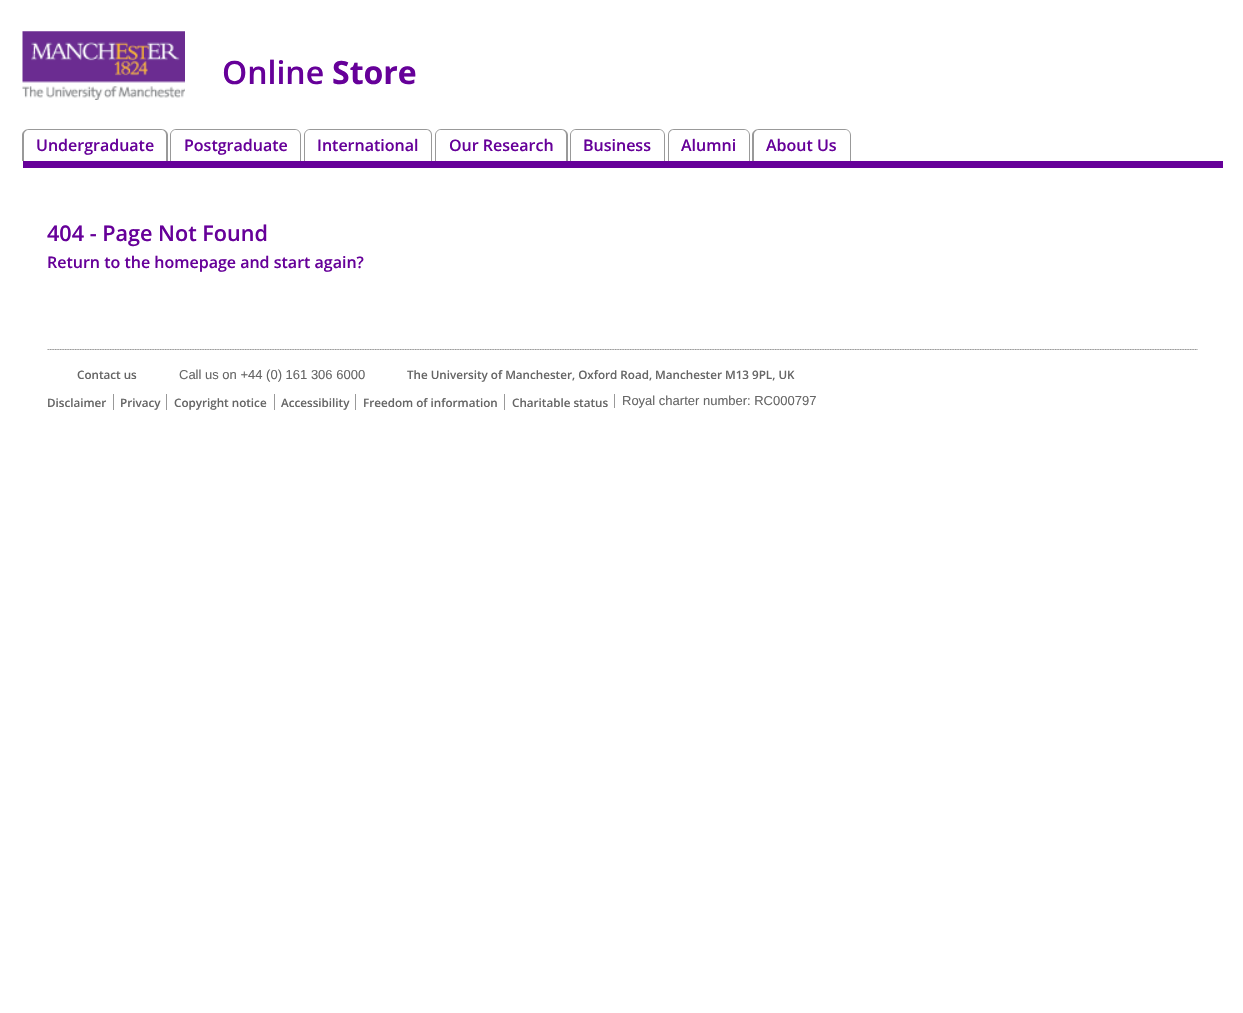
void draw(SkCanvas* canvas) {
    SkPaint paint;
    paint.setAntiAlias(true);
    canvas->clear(0xFFFFFFFF);
    canvas->drawImageRect(SkImages::DeferredFromEncodedData(SkData::MakeFromFileName("img1.png")), SkRect::MakeXYWH(22, 31, 163, 69), SkSamplingOptions());
    SkFont font1(fontMgr->matchFamilyStyle("Open Sans", SkFontStyle(600, SkFontStyle::kNormal_Width, SkFontStyle::kUpright_Slant)), 32);
    font1.setSubpixel(true);
    paint.setColor(0xFF660099);
    canvas->drawString("Online", 222, 84, font1, paint);
    SkFont font2(fontMgr->matchFamilyStyle("Open Sans", SkFontStyle::Bold()), 32);
    font2.setSubpixel(true);
    canvas->drawString("Store", 332, 84, font2, paint);
    paint.setColor(0xFF999999);
    canvas->drawPath(SkPathBuilder(SkPathFillType::kEvenOdd).moveTo(29, 129).lineTo(161, 129).cubicTo(165, 129, 168, 132, 168, 135).lineTo(168, 161).lineTo(22, 161).lineTo(22, 135).cubicTo(22, 132, 25, 129, 29, 129).close().moveTo(29, 130).lineTo(161, 130).cubicTo(164, 130, 166, 132, 166, 135).lineTo(166, 161).lineTo(24, 161).lineTo(24, 135).cubicTo(24, 132, 26, 130, 29, 130).close().detach(), paint);
    SkFont font3(fontMgr->matchFamilyStyle("Open Sans", SkFontStyle(600, SkFontStyle::kNormal_Width, SkFontStyle::kUpright_Slant)), 16);
    font3.setSubpixel(true);
    paint.setColor(0xFF660099);
    canvas->drawString("Undergraduate", 36, 151, font3, paint);
    paint.setColor(0xFF999999);
    canvas->drawPath(SkPathBuilder(SkPathFillType::kEvenOdd).moveTo(176, 129).lineTo(295, 129).cubicTo(298, 129, 301, 132, 301, 135).lineTo(301, 161).lineTo(170, 161).lineTo(170, 135).cubicTo(170, 132, 173, 129, 176, 129).close().moveTo(176, 130).lineTo(295, 130).cubicTo(298, 130, 300, 132, 300, 135).lineTo(300, 161).lineTo(171, 161).lineTo(171, 135).cubicTo(171, 132, 173, 130, 176, 130).close().detach(), paint);
    paint.setColor(0xFF660099);
    canvas->drawString("Postgraduate", 184, 151, font3, paint);
    paint.setColor(0xFF999999);
    canvas->drawPath(SkPathBuilder(SkPathFillType::kEvenOdd).moveTo(310, 129).lineTo(426, 129).cubicTo(430, 129, 432, 132, 432, 135).lineTo(432, 161).lineTo(304, 161).lineTo(304, 135).cubicTo(304, 132, 307, 129, 310, 129).close().moveTo(310, 130).lineTo(426, 130).cubicTo(429, 130, 431, 132, 431, 135).lineTo(431, 161).lineTo(305, 161).lineTo(305, 135).cubicTo(305, 132, 307, 130, 310, 130).close().detach(), paint);
    paint.setColor(0xFF660099);
    canvas->drawString("International", 317, 151, font3, paint);
    paint.setColor(0xFF999999);
    canvas->drawPath(SkPathBuilder(SkPathFillType::kEvenOdd).moveTo(441, 129).lineTo(561, 129).cubicTo(565, 129, 568, 132, 568, 135).lineTo(568, 161).lineTo(435, 161).lineTo(435, 135).cubicTo(435, 132, 438, 129, 441, 129).close().moveTo(441, 130).lineTo(561, 130).cubicTo(564, 130, 566, 132, 566, 135).lineTo(566, 161).lineTo(436, 161).lineTo(436, 135).cubicTo(436, 132, 438, 130, 441, 130).close().detach(), paint);
    paint.setColor(0xFF660099);
    canvas->drawString("Our Research", 449, 151, font3, paint);
    paint.setColor(0xFF999999);
    canvas->drawPath(SkPathBuilder(SkPathFillType::kEvenOdd).moveTo(576, 129).lineTo(659, 129).cubicTo(662, 129, 665, 132, 665, 135).lineTo(665, 161).lineTo(570, 161).lineTo(570, 135).cubicTo(570, 132, 573, 129, 576, 129).close().moveTo(576, 130).lineTo(659, 130).cubicTo(662, 130, 664, 132, 664, 135).lineTo(664, 161).lineTo(571, 161).lineTo(571, 135).cubicTo(571, 132, 573, 130, 576, 130).close().detach(), paint);
    paint.setColor(0xFF660099);
    canvas->drawString("Business", 583, 151, font3, paint);
    paint.setColor(0xFF999999);
    canvas->drawPath(SkPathBuilder(SkPathFillType::kEvenOdd).moveTo(674, 129).lineTo(744, 129).cubicTo(747, 129, 750, 132, 750, 135).lineTo(750, 161).lineTo(668, 161).lineTo(668, 135).cubicTo(668, 132, 670, 129, 674, 129).close().moveTo(674, 130).lineTo(744, 130).cubicTo(747, 130, 749, 132, 749, 135).lineTo(749, 161).lineTo(669, 161).lineTo(669, 135).cubicTo(669, 132, 671, 130, 674, 130).close().detach(), paint);
    paint.setColor(0xFF660099);
    canvas->drawString("Alumni", 681, 151, font3, paint);
    paint.setColor(0xFF999999);
    canvas->drawPath(SkPathBuilder(SkPathFillType::kEvenOdd).moveTo(759, 129).lineTo(845, 129).cubicTo(848, 129, 851, 132, 851, 135).lineTo(851, 161).lineTo(752, 161).lineTo(752, 135).cubicTo(752, 132, 755, 129, 759, 129).close().moveTo(759, 130).lineTo(845, 130).cubicTo(848, 130, 850, 132, 850, 135).lineTo(850, 161).lineTo(754, 161).lineTo(754, 135).cubicTo(754, 132, 756, 130, 759, 130).close().detach(), paint);
    paint.setColor(0xFF660099);
    canvas->drawString("About Us", 766, 151, font3, paint);
    canvas->drawRect(SkRect::MakeXYWH(23, 161, 1200, 7), paint);
    SkFont font4(fontMgr->matchFamilyStyle("Open Sans", SkFontStyle(600, SkFontStyle::kNormal_Width, SkFontStyle::kUpright_Slant)), 21.6f);
    font4.setSubpixel(true);
    canvas->drawString("404 - Page Not Found", 47, 241, font4, paint);
    canvas->drawString("Return to the homepage and start again?", 47, 268, font3, paint);
    paint.setColor(0xFFCCCCCC);
    canvas->drawRect(SkRect::MakeXYWH(48, 349, 1150, 1), paint);
    paint.setStyle(SkPaint::kStroke_Style);
    paint.setStrokeWidth(1.2f);
    paint.setColor(0xFF999999);
    paint.setPathEffect(SkDashPathEffect::Make({{1.25f, 1.25f}}, 0));
    canvas->drawPath(SkPathBuilder().moveTo(47.5f, 349.5f).lineTo(1197.5f, 349.5f).detach(), paint);
    paint.setPathEffect(nullptr);
    SkFont font5(fontMgr->matchFamilyStyle("Open Sans", SkFontStyle(600, SkFontStyle::kNormal_Width, SkFontStyle::kUpright_Slant)), 11.65f);
    font5.setSubpixel(true);
    paint.setStyle(SkPaint::kFill_Style);
    paint.setColor(0xFF666666);
    canvas->drawString("Contact us", 77, 379, font5, paint);
    SkFont font6(fontMgr->matchFamilyStyle("Liberation Sans", SkFontStyle::Normal()), 13);
    font6.setSubpixel(true);
    canvas->drawString("Call us on +44 (0) 161 306 6000", 179, 379, font6, paint);
    canvas->drawString("The University of Manchester, Oxford Road, Manchester M13 9PL, UK", 407, 379, font5, paint);
    canvas->drawString("Disclaimer", 47, 407, font5, paint);
    paint.setColor(0xFF999999);
    canvas->drawRect(SkRect::MakeXYWH(113, 394, 1, 16), paint);
    paint.setColor(0xFF666666);
    canvas->drawString("Privacy", 120, 407, font5, paint);
    paint.setColor(0xFF999999);
    canvas->drawRect(SkRect::MakeXYWH(166, 394, 1, 16), paint);
    paint.setColor(0xFF666666);
    canvas->drawString("Copyright notice", 174, 407, font5, paint);
    paint.setColor(0xFF999999);
    canvas->drawRect(SkRect::MakeXYWH(274, 394, 1, 16), paint);
    paint.setColor(0xFF666666);
    canvas->drawString("Accessibility", 281, 407, font5, paint);
    paint.setColor(0xFF999999);
    canvas->drawRect(SkRect::MakeXYWH(355, 394, 1, 16), paint);
    paint.setColor(0xFF666666);
    canvas->drawString("Freedom of information", 363, 407, font5, paint);
    paint.setColor(0xFF999999);
    canvas->drawRect(SkRect::MakeXYWH(504, 394, 1, 16), paint);
    paint.setColor(0xFF666666);
    canvas->drawString("Charitable status", 512, 407, font5, paint);
    paint.setColor(0xFF999999);
    canvas->drawRect(SkRect::MakeXYWH(614, 394, 1, 14), paint);
    paint.setColor(0xFF666666);
    canvas->drawString("Royal charter number: RC000797", 622, 405, font6, paint);
}
